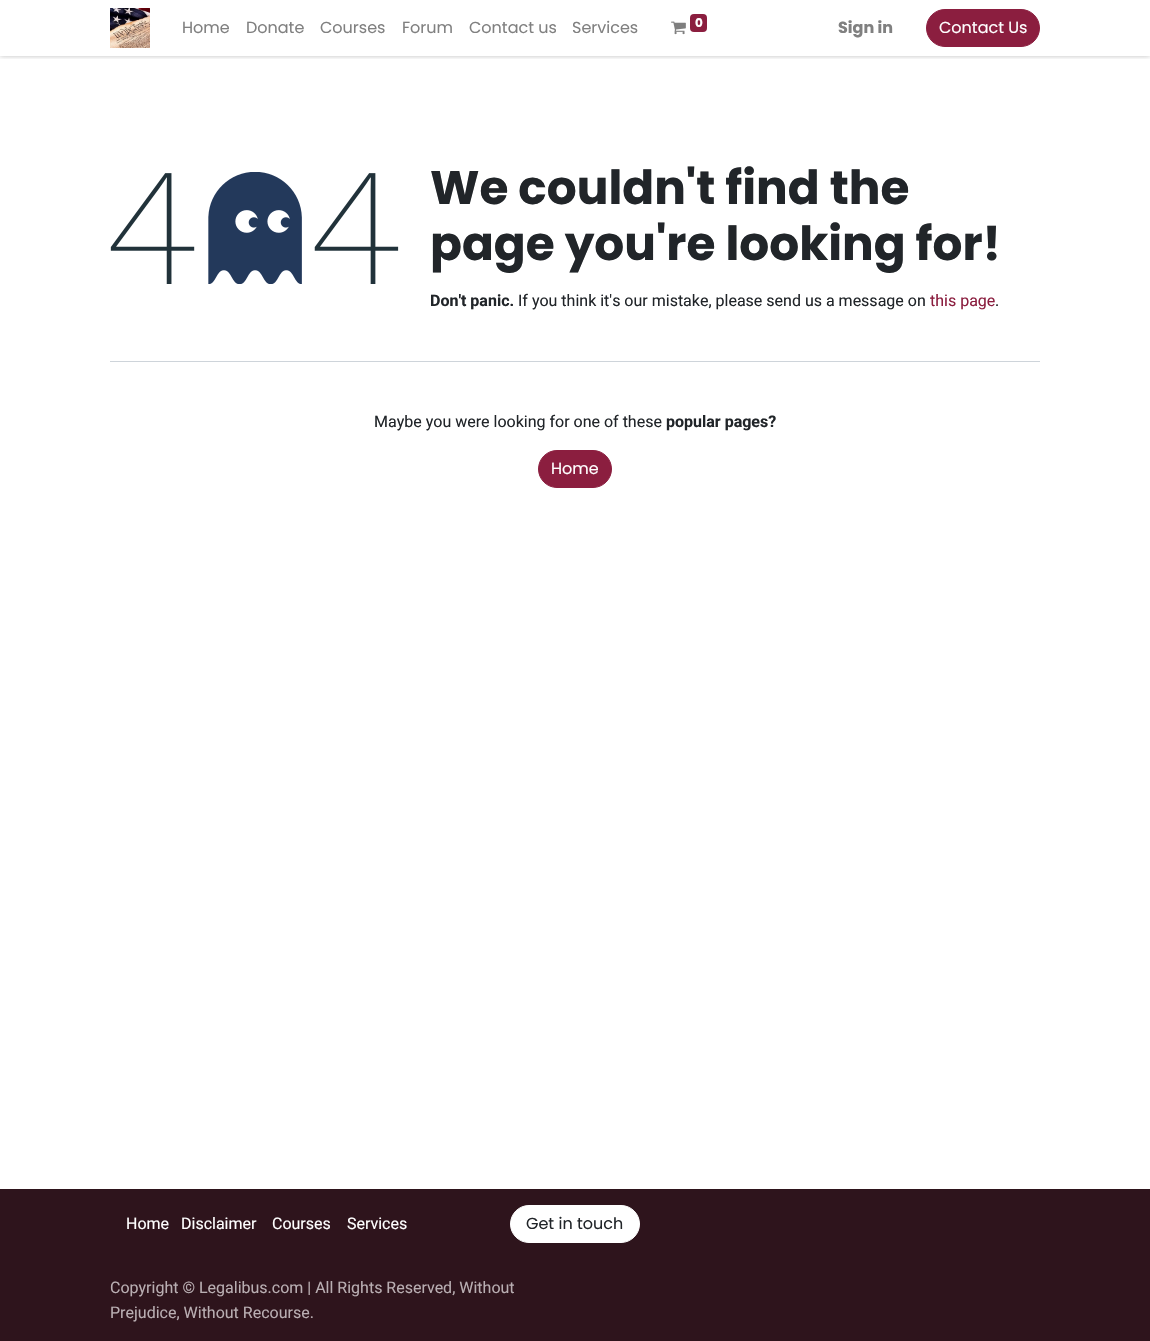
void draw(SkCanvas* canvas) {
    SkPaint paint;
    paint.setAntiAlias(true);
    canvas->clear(0xFFFFFFFF);
    canvas->save();
    canvas->clipRect(SkRect::MakeXYWH(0, 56, 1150, 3));
    paint.setColor(0x40000000);
    paint.setMaskFilter(SkMaskFilter::MakeBlur(kNormal_SkBlurStyle, 2.5f));
    canvas->drawRect(SkRect::MakeXYWH(0, 0, 1150, 56), paint);
    paint.setMaskFilter(nullptr);
    canvas->restore();
    canvas->drawImageRect(SkImages::DeferredFromEncodedData(SkData::MakeFromFileName("img1.png")), SkRect::MakeXYWH(110, 8, 40, 40), SkSamplingOptions());
    SkFont font1(fontMgr->matchFamilyStyle("Poppins", SkFontStyle::Normal()), 16);
    font1.setSubpixel(true);
    paint.setColor(0xFF808080);
    canvas->drawString("Home", 182, 33, font1, paint);
    canvas->drawString("Donate", 246, 33, font1, paint);
    canvas->drawString("Courses", 320, 33, font1, paint);
    canvas->drawString("Forum", 402, 33, font1, paint);
    canvas->drawString("Contact us", 469, 33, font1, paint);
    canvas->drawString("Services", 572, 33, font1, paint);
    canvas->drawImageRect(SkImages::DeferredFromEncodedData(SkData::MakeFromFileName("img2.png")), SkRect::MakeXYWH(671, 21, 15, 14), SkSamplingOptions());
    paint.setColor(0xFF8B1E3F);
    canvas->drawRoundRect(SkRect::MakeXYWH(690, 14, 17, 18), 4, 4, paint);
    SkFont font2(fontMgr->matchFamilyStyle("Poppins", SkFontStyle::Bold()), 12);
    font2.setSubpixel(true);
    paint.setColor(0xFFFFFFFF);
    canvas->drawString("0", 695, 27, font2, paint);
    SkFont font3(fontMgr->matchFamilyStyle("Poppins", SkFontStyle::Bold()), 16);
    font3.setSubpixel(true);
    paint.setColor(0xFF808080);
    canvas->drawString("Sign in", 838, 33, font3, paint);
    paint.setColor(0xFF8B1E3F);
    canvas->drawRoundRect(SkRect::MakeXYWH(926.5f, 9.5f, 113, 37), 18.5f, 18.5f, paint);
    paint.setStyle(SkPaint::kStroke_Style);
    paint.setStrokeWidth(1);
    canvas->drawRoundRect(SkRect::MakeXYWH(926.5f, 9.5f, 113, 37), 18.5f, 18.5f, paint);
    paint.setStyle(SkPaint::kFill_Style);
    paint.setColor(0xFFFFFFFF);
    canvas->drawString("Contact Us", 939, 33, font1, paint);
    canvas->drawImageRect(SkImages::DeferredFromEncodedData(SkData::MakeFromFileName("img3.png")), SkRect::MakeXYWH(110, 172, 289, 112), SkSamplingOptions());
    SkFont font4(fontMgr->matchFamilyStyle("Poppins", SkFontStyle::Bold()), 47);
    font4.setSubpixel(true);
    paint.setColor(0xFF212529);
    canvas->drawString("We couldn't find the", 430, 204, font4, paint);
    canvas->drawString("page you're looking for!", 430, 260, font4, paint);
    SkFont font5(fontMgr->matchFamilyStyle("Roboto", SkFontStyle::Bold()), 16);
    font5.setSubpixel(true);
    canvas->drawString("Don't panic.", 430, 306, font5, paint);
    SkFont font6(fontMgr->matchFamilyStyle("Roboto", SkFontStyle::Normal()), 16);
    font6.setSubpixel(true);
    canvas->drawString("If you think it's our mistake, please send us a message on", 518, 306, font6, paint);
    paint.setColor(0xFF8B1E3F);
    canvas->drawString("this page", 930, 306, font6, paint);
    paint.setColor(0xFF212529);
    canvas->drawString(".", 995, 306, font6, paint);
    paint.setColor(0xFFCED4DA);
    canvas->drawRect(SkRect::MakeXYWH(110, 361, 930, 1), paint);
    paint.setColor(0xFF212529);
    canvas->drawString("Maybe you were looking for one of these", 374, 427, font6, paint);
    canvas->drawString("popular pages?", 666, 427, font5, paint);
    paint.setColor(0xFF8B1E3F);
    canvas->drawRoundRect(SkRect::MakeXYWH(538.5f, 450.5f, 73, 37), 18.5f, 18.5f, paint);
    paint.setStyle(SkPaint::kStroke_Style);
    canvas->drawRoundRect(SkRect::MakeXYWH(538.5f, 450.5f, 73, 37), 18.5f, 18.5f, paint);
    paint.setStyle(SkPaint::kFill_Style);
    paint.setColor(0xFFFFFFFF);
    canvas->drawString("Home", 551, 474, font1, paint);
    paint.setColor(0xFF2E141C);
    canvas->drawRect(SkRect::MakeXYWH(0, 1189, 1150, 152), paint);
    paint.setColor(0xFFFFFFFF);
    canvas->drawString("Home", 126, 1229, font6, paint);
    canvas->drawString("Disclaimer", 181, 1229, font6, paint);
    canvas->drawString("Courses", 272, 1229, font6, paint);
    canvas->drawString("Services", 347, 1229, font6, paint);
    canvas->drawRoundRect(SkRect::MakeXYWH(510.5f, 1205.5f, 129, 37), 18.5f, 18.5f, paint);
    paint.setStyle(SkPaint::kStroke_Style);
    canvas->drawRoundRect(SkRect::MakeXYWH(510.5f, 1205.5f, 129, 37), 18.5f, 18.5f, paint);
    paint.setStyle(SkPaint::kFill_Style);
    paint.setColor(0xFF212529);
    canvas->drawString("Get in touch", 526, 1229, font1, paint);
    paint.setColor(0xFFB9AEB2);
    canvas->drawString("Copyright © Legalibus.com | All Rights Reserved, Without", 110, 1293, font6, paint);
    canvas->drawString("Prejudice, Without Recourse.", 110, 1318, font6, paint);
}
